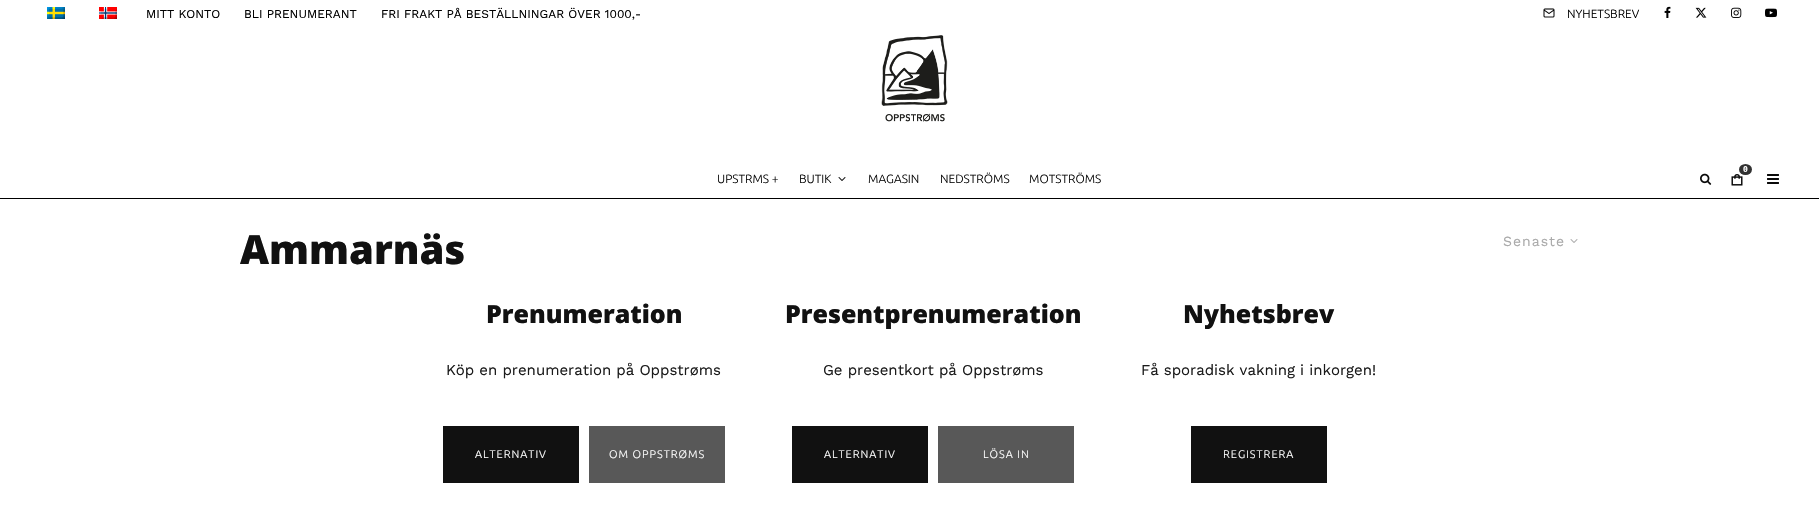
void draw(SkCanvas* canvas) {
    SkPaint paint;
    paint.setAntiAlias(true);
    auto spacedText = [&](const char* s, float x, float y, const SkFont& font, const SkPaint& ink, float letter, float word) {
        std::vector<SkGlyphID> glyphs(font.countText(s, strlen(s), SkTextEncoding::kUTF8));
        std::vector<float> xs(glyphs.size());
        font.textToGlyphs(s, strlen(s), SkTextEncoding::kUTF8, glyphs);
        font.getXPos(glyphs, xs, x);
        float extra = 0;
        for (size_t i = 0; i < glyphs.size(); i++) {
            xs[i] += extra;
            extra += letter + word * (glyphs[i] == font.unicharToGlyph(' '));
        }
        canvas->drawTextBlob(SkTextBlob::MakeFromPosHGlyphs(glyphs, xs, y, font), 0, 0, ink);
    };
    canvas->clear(0xFFFFFFFF);
    canvas->drawImageRect(SkImages::DeferredFromEncodedData(SkData::MakeFromFileName("img1.png")), SkRect::MakeXYWH(47, 7, 18, 12), SkSamplingOptions());
    canvas->drawImageRect(SkImages::DeferredFromEncodedData(SkData::MakeFromFileName("img2.png")), SkRect::MakeXYWH(99, 7, 18, 12), SkSamplingOptions());
    SkFont font1(fontMgr->matchFamilyStyle("Work Sans", SkFontStyle::Normal()), 12);
    font1.setSubpixel(true);
    paint.setColor(0xFF000000);
    canvas->drawString("MITT KONTO", 146, 18, font1, paint);
    canvas->drawString("BLI PRENUMERANT", 244, 18, font1, paint);
    canvas->drawString("FRI FRAKT PÅ BESTÄLLNINGAR ÖVER 1000,-", 381, 18, font1, paint);
    canvas->drawImageRect(SkImages::DeferredFromEncodedData(SkData::MakeFromFileName("img3.png")), SkRect::MakeXYWH(1543, 8, 12, 10), SkSamplingOptions());
    SkFont font2(fontMgr->matchFamilyStyle("Ubuntu", SkFontStyle(300, SkFontStyle::kNormal_Width, SkFontStyle::kUpright_Slant)), 12);
    font2.setSubpixel(true);
    canvas->drawString("NYHETSBREV", 1567, 18, font2, paint);
    canvas->drawImageRect(SkImages::DeferredFromEncodedData(SkData::MakeFromFileName("img4.png")), SkRect::MakeXYWH(1664, 6, 7, 12), SkSamplingOptions());
    canvas->drawImageRect(SkImages::DeferredFromEncodedData(SkData::MakeFromFileName("img5.png")), SkRect::MakeXYWH(1695, 7, 12, 11), SkSamplingOptions());
    canvas->drawImageRect(SkImages::DeferredFromEncodedData(SkData::MakeFromFileName("img6.png")), SkRect::MakeXYWH(1731, 7, 11, 11), SkSamplingOptions());
    canvas->drawImageRect(SkImages::DeferredFromEncodedData(SkData::MakeFromFileName("img7.png")), SkRect::MakeXYWH(1765, 8, 12, 10), SkSamplingOptions());
    canvas->drawImageRect(SkImages::DeferredFromEncodedData(SkData::MakeFromFileName("img8.png")), SkRect::MakeXYWH(881, 35, 67, 87), SkSamplingOptions());
    canvas->drawRect(SkRect::MakeXYWH(0, 198, 1819, 1), paint);
    canvas->drawImageRect(SkImages::DeferredFromEncodedData(SkData::MakeFromFileName("img9.png")), SkRect::MakeXYWH(1731, 174, 12, 12), SkSamplingOptions());
    paint.setColor(0xFF313131);
    canvas->drawOval(SkRect::MakeXYWH(1739, 164, 13, 11), paint);
    SkFont font3(fontMgr->matchFamilyStyle("DejaVu Sans Mono", SkFontStyle::Bold()), 8);
    font3.setSubpixel(true);
    paint.setColor(0xFFFFFFFF);
    canvas->drawString("0", 1743, 172, font3, paint);
    canvas->drawImageRect(SkImages::DeferredFromEncodedData(SkData::MakeFromFileName("img10.png")), SkRect::MakeXYWH(1700, 173, 12, 12), SkSamplingOptions());
    canvas->drawImageRect(SkImages::DeferredFromEncodedData(SkData::MakeFromFileName("img11.png")), SkRect::MakeXYWH(1767, 174, 12, 10), SkSamplingOptions());
    paint.setColor(0xFF0A0A0A);
    canvas->drawString("UPSTRMS +", 717, 183, font2, paint);
    canvas->drawString("BUTIK", 799, 183, font2, paint);
    canvas->drawImageRect(SkImages::DeferredFromEncodedData(SkData::MakeFromFileName("img12.png")), SkRect::MakeXYWH(838, 177, 8, 4), SkSamplingOptions());
    canvas->drawString("MAGASIN", 868, 183, font2, paint);
    canvas->drawString("NEDSTRÖMS", 940, 183, font2, paint);
    canvas->drawString("MOTSTRÖMS", 1029, 183, font2, paint);
    SkFont font4(fontMgr->matchFamilyStyle("Open Sans", SkFontStyle(800, SkFontStyle::kNormal_Width, SkFontStyle::kUpright_Slant)), 40);
    font4.setSubpixel(true);
    paint.setColor(0xFF111111);
    canvas->drawString("Ammarnäs", 240, 264, font4, paint);
    SkFont font5(fontMgr->matchFamilyStyle("Work Sans", SkFontStyle::Normal()), 14);
    font5.setSubpixel(true);
    paint.setColor(0xFFAAAAAA);
    spacedText("Senaste", 1503, 246, font5, paint, 1, 0);
    canvas->drawImageRect(SkImages::DeferredFromEncodedData(SkData::MakeFromFileName("img13.png")), SkRect::MakeXYWH(1570, 239, 8, 4), SkSamplingOptions());
    SkFont font6(fontMgr->matchFamilyStyle("Open Sans", SkFontStyle(800, SkFontStyle::kNormal_Width, SkFontStyle::kUpright_Slant)), 25);
    font6.setSubpixel(true);
    paint.setColor(0xFF111111);
    canvas->drawString("Prenumeration", 486, 323, font6, paint);
    SkFont font7(fontMgr->matchFamilyStyle("Work Sans", SkFontStyle::Normal()), 15);
    font7.setSubpixel(true);
    paint.setColor(0xFF1B1B1B);
    canvas->drawString("Köp en prenumeration på Oppstrøms", 446, 375, font7, paint);
    paint.setColor(0xFF111111);
    canvas->drawRect(SkRect::MakeXYWH(443, 426, 136, 57), paint);
    SkFont font8(fontMgr->matchFamilyStyle("Ubuntu", SkFontStyle(300, SkFontStyle::kNormal_Width, SkFontStyle::kUpright_Slant)), 11);
    font8.setSubpixel(true);
    paint.setColor(0xFFFFFFFF);
    spacedText("ALTERNATIV", 475, 458, font8, paint, 1, 0);
    paint.setColor(0xFF585858);
    canvas->drawRect(SkRect::MakeXYWH(589, 426, 136, 57), paint);
    paint.setColor(0xFFFFFFFF);
    spacedText("OM OPPSTRØMS", 609, 458, font8, paint, 1, 0);
    paint.setColor(0xFF111111);
    canvas->drawString("Presentprenumeration", 785, 323, font6, paint);
    paint.setColor(0xFF1B1B1B);
    canvas->drawString("Ge presentkort på Oppstrøms", 823, 375, font7, paint);
    paint.setColor(0xFF111111);
    canvas->drawRect(SkRect::MakeXYWH(792, 426, 136, 57), paint);
    paint.setColor(0xFFFFFFFF);
    spacedText("ALTERNATIV", 824, 458, font8, paint, 1, 0);
    paint.setColor(0xFF585858);
    canvas->drawRect(SkRect::MakeXYWH(938, 426, 136, 57), paint);
    paint.setColor(0xFFFFFFFF);
    spacedText("LÖSA IN", 983, 458, font8, paint, 1, 0);
    paint.setColor(0xFF111111);
    canvas->drawString("Nyhetsbrev", 1183, 323, font6, paint);
    paint.setColor(0xFF1B1B1B);
    canvas->drawString("Få sporadisk vakning i inkorgen!", 1141, 375, font7, paint);
    paint.setColor(0xFF111111);
    canvas->drawRect(SkRect::MakeXYWH(1191, 426, 136, 57), paint);
    paint.setColor(0xFFFFFFFF);
    spacedText("REGISTRERA", 1223, 458, font8, paint, 1, 0);
}
